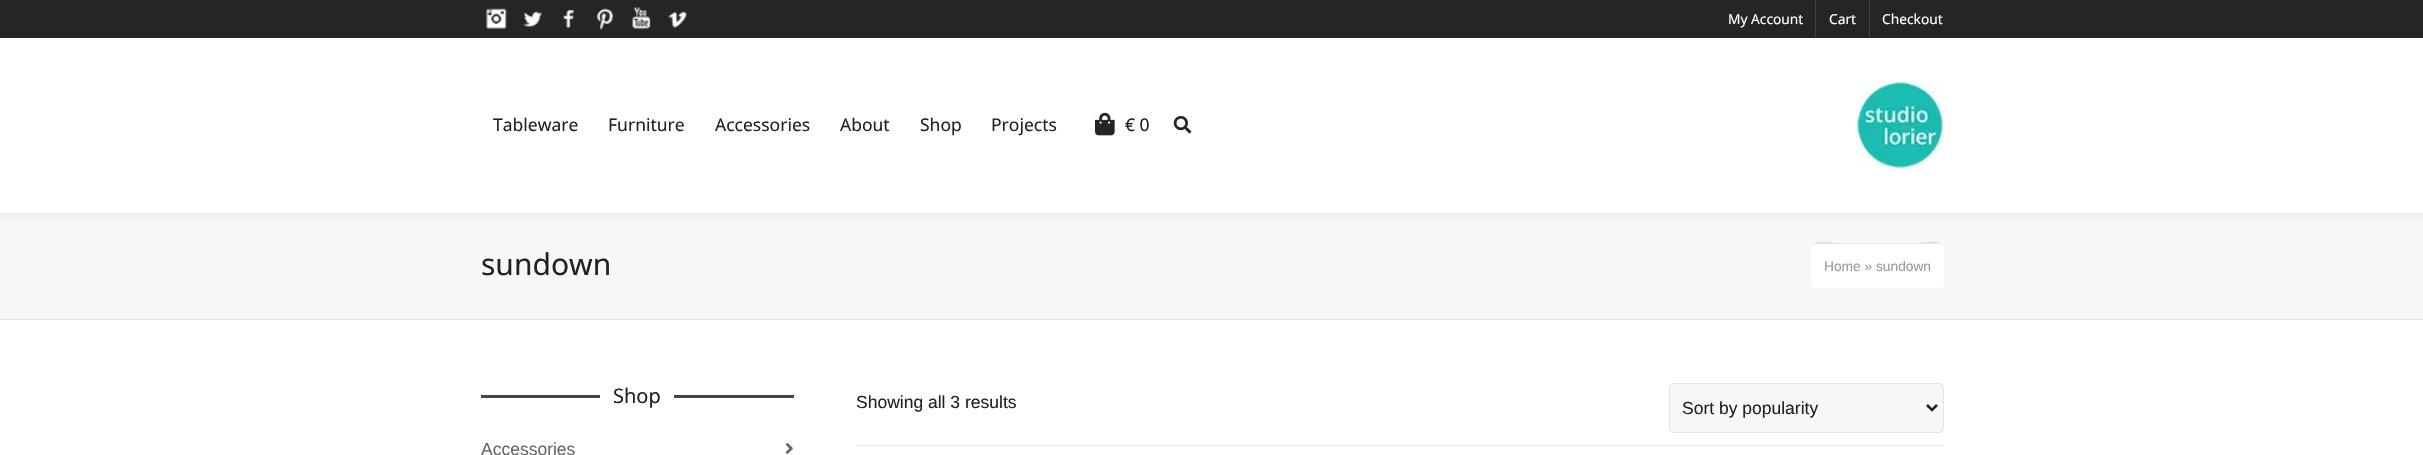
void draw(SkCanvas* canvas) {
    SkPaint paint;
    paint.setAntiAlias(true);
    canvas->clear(0xFFFFFFFF);
    paint.setColor(0xFFF7F7F7);
    canvas->drawRect(SkRect::MakeXYWH(0, 213, 2423, 106), paint);
    paint.setColor(0x0D000000);
    paint.setMaskFilter(SkMaskFilter::MakeBlur(kNormal_SkBlurStyle, 3));
    canvas->drawRect(SkRect::MakeXYWH(0, 41, 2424, 175), paint);
    paint.setMaskFilter(nullptr);
    paint.setColor(0xFF252525);
    canvas->drawRect(SkRect::MakeXYWH(0, 0, 2423, 38), paint);
    canvas->drawImageRect(SkImages::DeferredFromEncodedData(SkData::MakeFromFileName("img1.png")), SkRect::MakeXYWH(486, 8, 21, 21), SkSamplingOptions());
    canvas->drawImageRect(SkImages::DeferredFromEncodedData(SkData::MakeFromFileName("img2.png")), SkRect::MakeXYWH(522, 11, 20, 17), SkSamplingOptions());
    canvas->drawImageRect(SkImages::DeferredFromEncodedData(SkData::MakeFromFileName("img3.png")), SkRect::MakeXYWH(563, 9, 11, 19), SkSamplingOptions());
    canvas->drawImageRect(SkImages::DeferredFromEncodedData(SkData::MakeFromFileName("img4.png")), SkRect::MakeXYWH(596, 8, 18, 22), SkSamplingOptions());
    canvas->drawImageRect(SkImages::DeferredFromEncodedData(SkData::MakeFromFileName("img5.png")), SkRect::MakeXYWH(632, 7, 19, 22), SkSamplingOptions());
    canvas->drawImageRect(SkImages::DeferredFromEncodedData(SkData::MakeFromFileName("img6.png")), SkRect::MakeXYWH(668, 11, 19, 17), SkSamplingOptions());
    SkFont font1(fontMgr->matchFamilyStyle("Noto Sans", SkFontStyle::Normal()), 13.75f);
    font1.setSubpixel(true);
    paint.setColor(0xFFFFFFFF);
    canvas->drawString("My Account", 1728, 24, font1, paint);
    paint.setColor(0xFF444444);
    canvas->drawRect(SkRect::MakeXYWH(1815, 0, 1, 38), paint);
    paint.setColor(0xFFFFFFFF);
    canvas->drawString("Cart", 1829, 24, font1, paint);
    paint.setColor(0xFF444444);
    canvas->drawRect(SkRect::MakeXYWH(1869, 0, 1, 38), paint);
    paint.setColor(0xFFFFFFFF);
    canvas->drawString("Checkout", 1882, 24, font1, paint);
    canvas->drawRect(SkRect::MakeXYWH(0, 38, 2423, 175), paint);
    SkFont font2(fontMgr->matchFamilyStyle("Noto Sans", SkFontStyle::Normal()), 17.5f);
    font2.setSubpixel(true);
    paint.setColor(0xFF222222);
    canvas->drawString("Tableware", 493, 131, font2, paint);
    canvas->drawString("Furniture", 608, 131, font2, paint);
    canvas->drawString("Accessories", 715, 131, font2, paint);
    canvas->drawString("About", 840, 131, font2, paint);
    canvas->drawString("Shop", 920, 131, font2, paint);
    canvas->drawString("Projects", 991, 131, font2, paint);
    canvas->drawImageRect(SkImages::DeferredFromEncodedData(SkData::MakeFromFileName("img7.png")), SkRect::MakeXYWH(1095, 112, 20, 24), SkSamplingOptions());
    canvas->drawString("€ 0", 1125, 131, font2, paint);
    canvas->drawImageRect(SkImages::DeferredFromEncodedData(SkData::MakeFromFileName("img8.png")), SkRect::MakeXYWH(1173, 115, 19, 19), SkSamplingOptions());
    canvas->drawImageRect(SkImages::DeferredFromEncodedData(SkData::MakeFromFileName("img9.png")), SkRect::MakeXYWH(1856, 81, 88, 88), SkSamplingOptions());
    paint.setColor(0xFFE4E4E4);
    canvas->drawRect(SkRect::MakeXYWH(0, 319, 2423, 1), paint);
    SkFont font3(fontMgr->matchFamilyStyle("Noto Sans", SkFontStyle::Normal()), 30);
    font3.setSubpixel(true);
    paint.setColor(0xFF222222);
    canvas->drawString("sundown", 481, 275, font3, paint);
    paint.setColor(0xFFFFFFFF);
    canvas->drawRoundRect(SkRect::MakeXYWH(1811, 243, 133, 45), 5, 5, paint);
    paint.setColor(0x1A000000);
    canvas->drawPath(SkPathBuilder().moveTo(1816, 244).lineTo(1939, 244).cubicTo(1942, 244, 1944, 246, 1944, 249).cubicTo(1944, 238, 1922, 243, 1918, 243).lineTo(1836, 243).cubicTo(1833, 243, 1811, 238, 1811, 249).cubicTo(1811, 246, 1813, 244, 1816, 244).close().detach(), paint);
    SkFont font4(fontMgr->matchFamilyStyle("Liberation Sans", SkFontStyle::Normal()), 13.75f);
    font4.setSubpixel(true);
    paint.setColor(0xFF999999);
    canvas->drawString("Home » sundown", 1824, 271, font4, paint);
    paint.setColor(0xFF444444);
    canvas->drawRect(SkRect::MakeXYWH(481, 395, 313, 3), paint);
    paint.setColor(0xFFFFFFFF);
    canvas->drawRect(SkRect::MakeXYWH(600, 395, 74, 3), paint);
    SkFont font5(fontMgr->matchFamilyStyle("Noto Sans", SkFontStyle::Normal()), 20);
    font5.setSubpixel(true);
    paint.setColor(0xFF222222);
    canvas->drawString("Shop", 613, 403, font5, paint);
    SkFont font6(fontMgr->matchFamilyStyle("Liberation Sans", SkFontStyle::Normal()), 17.5f);
    font6.setSubpixel(true);
    paint.setColor(0xFF666666);
    canvas->drawString("Accessories", 481, 455, font6, paint);
    canvas->drawImageRect(SkImages::DeferredFromEncodedData(SkData::MakeFromFileName("img10.png")), SkRect::MakeXYWH(785, 443, 8, 11), SkSamplingOptions());
    paint.setColor(0xFF222222);
    canvas->drawString("Showing all 3 results", 856, 408, font6, paint);
    paint.setColor(0xFFF7F7F7);
    canvas->drawRoundRect(SkRect::MakeXYWH(1669.5f, 383.5f, 274, 49), 4.5f, 4.5f, paint);
    paint.setStyle(SkPaint::kStroke_Style);
    paint.setStrokeWidth(1);
    paint.setColor(0xFFE4E4E4);
    canvas->drawRoundRect(SkRect::MakeXYWH(1669.5f, 383.5f, 274, 49), 4.5f, 4.5f, paint);
    paint.setStrokeWidth(2.5f);
    paint.setColor(0xFF222222);
    canvas->drawPath(SkPathBuilder().moveTo(1927, 405).lineTo(1932, 410).lineTo(1937, 405).detach(), paint);
    paint.setStyle(SkPaint::kFill_Style);
    canvas->drawString("Sort by popularity", 1682, 414, font6, paint);
    paint.setColor(0xFFE4E4E4);
    canvas->drawRect(SkRect::MakeXYWH(856, 445, 1088, 1), paint);
}
